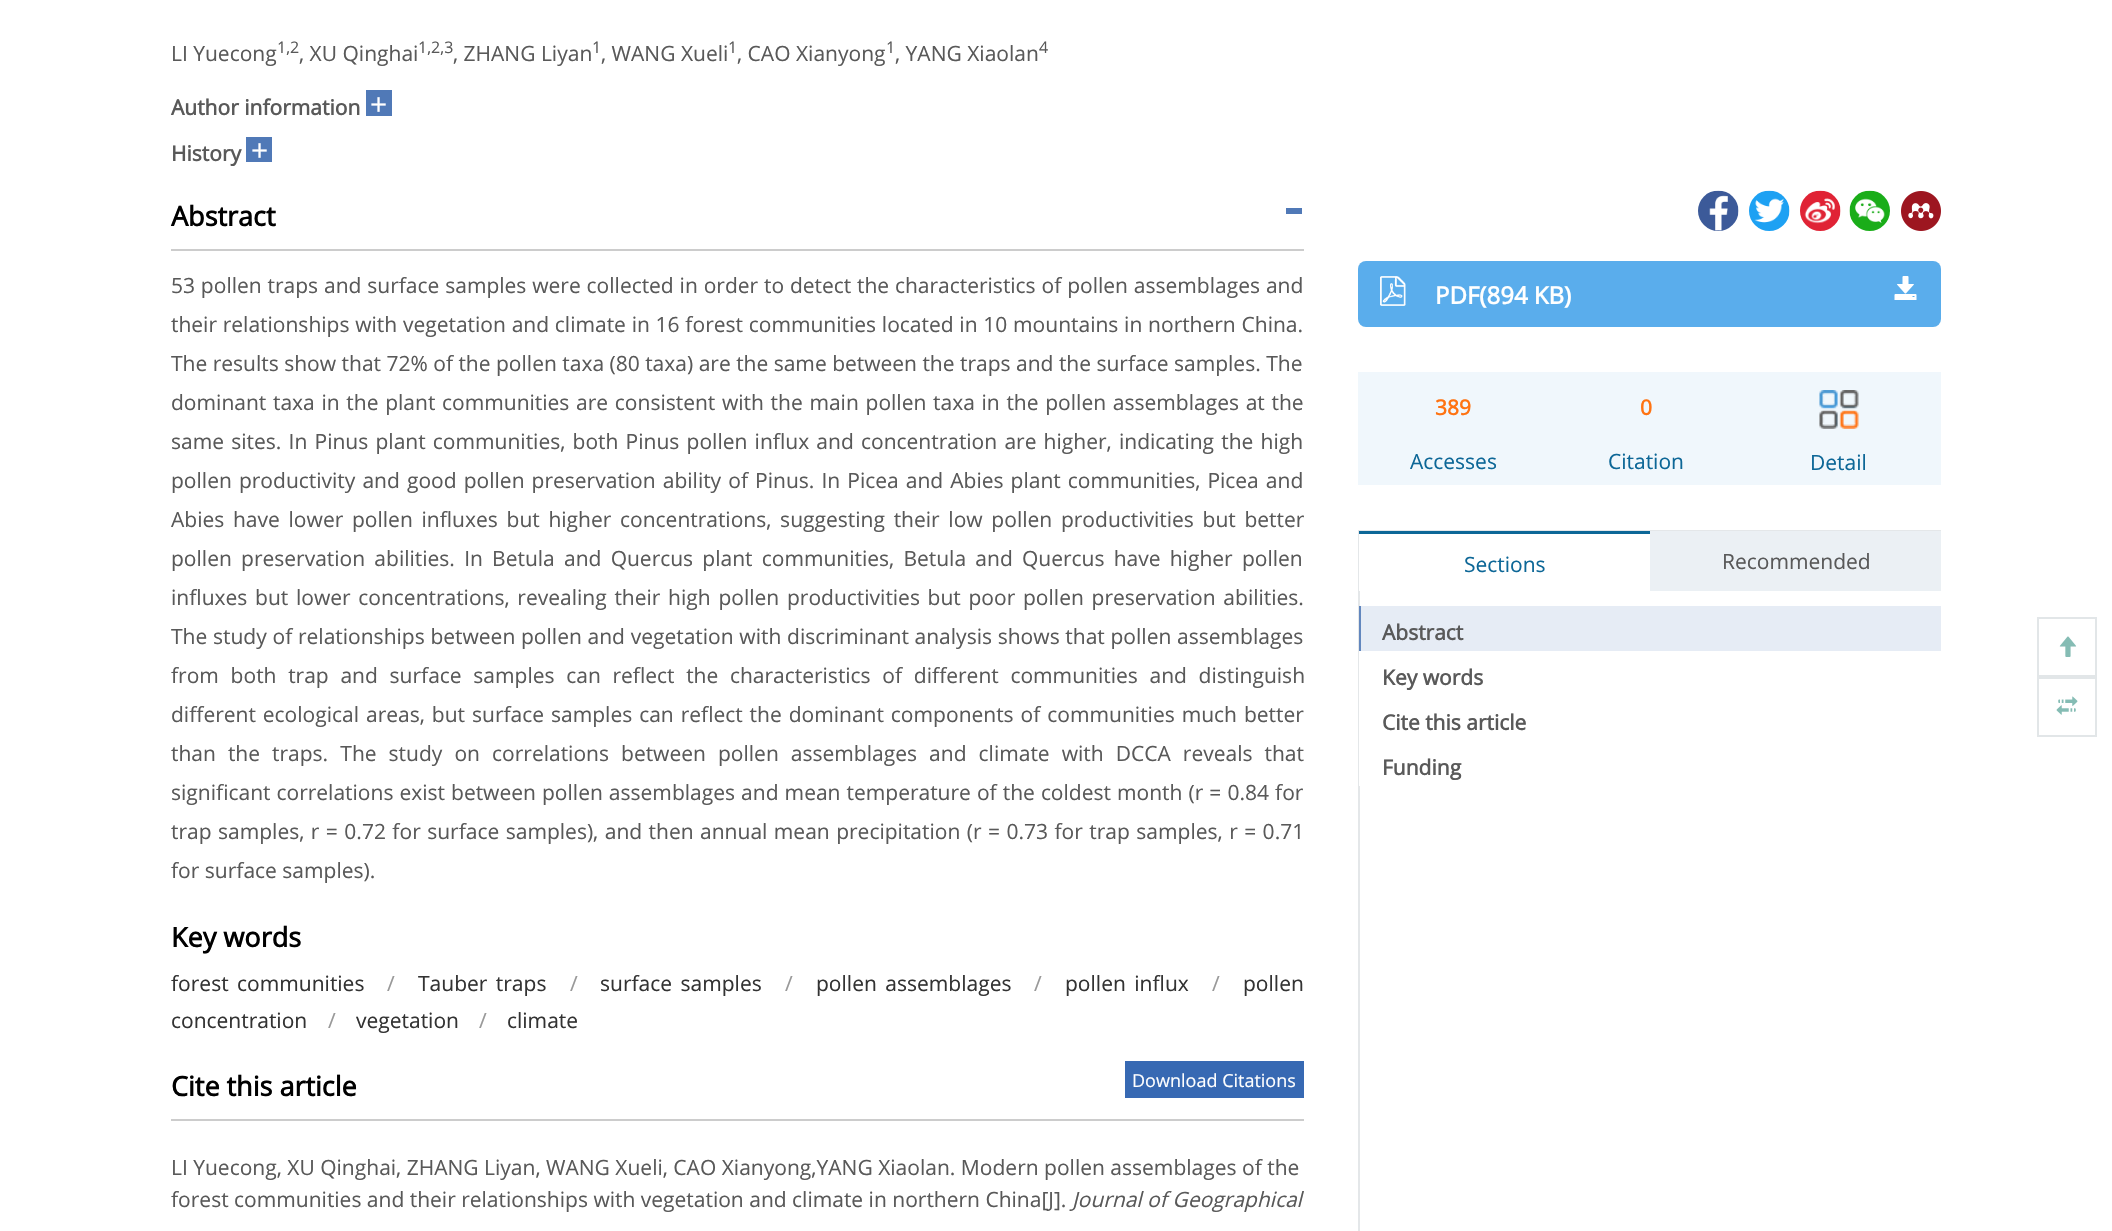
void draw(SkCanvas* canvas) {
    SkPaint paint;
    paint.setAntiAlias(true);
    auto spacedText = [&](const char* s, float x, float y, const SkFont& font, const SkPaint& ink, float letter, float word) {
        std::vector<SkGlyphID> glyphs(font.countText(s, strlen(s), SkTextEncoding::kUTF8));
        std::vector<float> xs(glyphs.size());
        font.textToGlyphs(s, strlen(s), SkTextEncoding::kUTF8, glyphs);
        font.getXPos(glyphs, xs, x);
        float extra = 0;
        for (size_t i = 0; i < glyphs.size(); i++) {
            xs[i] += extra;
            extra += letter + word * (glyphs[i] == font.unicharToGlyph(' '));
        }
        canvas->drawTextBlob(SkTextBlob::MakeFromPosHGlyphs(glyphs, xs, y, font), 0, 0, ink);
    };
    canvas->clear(0xFFFFFFFF);
    SkFont font1(fontMgr->matchFamilyStyle("Open Sans", SkFontStyle::Normal()), 21);
    font1.setSubpixel(true);
    paint.setColor(0xFF595959);
    canvas->drawString("LI Yuecong", 171, 61, font1, paint);
    SkFont font2(fontMgr->matchFamilyStyle("Open Sans", SkFontStyle::Normal()), 16);
    font2.setSubpixel(true);
    canvas->drawString("1,2", 277, 53, font2, paint);
    canvas->drawString(", XU Qinghai", 299, 61, font1, paint);
    canvas->drawString("1,2,3", 418, 53, font2, paint);
    canvas->drawString(", ZHANG Liyan", 453, 61, font1, paint);
    canvas->drawString("1", 592, 53, font2, paint);
    canvas->drawString(", WANG Xueli", 601, 61, font1, paint);
    canvas->drawString("1", 728, 53, font2, paint);
    canvas->drawString(", CAO Xianyong", 737, 61, font1, paint);
    canvas->drawString("1", 886, 53, font2, paint);
    canvas->drawString(", YANG Xiaolan", 895, 61, font1, paint);
    canvas->drawString("4", 1039, 53, font2, paint);
    SkFont font3(fontMgr->matchFamilyStyle("Open Sans", SkFontStyle::Bold()), 21);
    font3.setSubpixel(true);
    canvas->drawString("Author information", 171, 115, font3, paint);
    paint.setColor(0xFF5079B7);
    canvas->drawRect(SkRect::MakeXYWH(366, 90, 26, 26), paint);
    SkFont font4(fontMgr->matchFamilyStyle("Open Sans", SkFontStyle::Normal()), 30);
    font4.setSubpixel(true);
    paint.setColor(0xFFFFFFFF);
    canvas->drawString("+", 370, 115, font4, paint);
    paint.setColor(0xFF595959);
    canvas->drawString("History", 171, 161, font3, paint);
    paint.setColor(0xFF5079B7);
    canvas->drawRect(SkRect::MakeXYWH(246, 137, 26, 25), paint);
    paint.setColor(0xFFFFFFFF);
    canvas->drawString("+", 251, 161, font4, paint);
    paint.setColor(0xFFCCCCCC);
    canvas->drawRect(SkRect::MakeXYWH(171, 249, 1133, 2), paint);
    SkFont font5(fontMgr->matchFamilyStyle("Open Sans", SkFontStyle::Bold()), 27);
    font5.setSubpixel(true);
    paint.setColor(0xFF000000);
    canvas->drawString("Abstract", 171, 226, font5, paint);
    paint.setColor(0xFF5079B7);
    canvas->drawRect(SkRect::MakeXYWH(1286, 208, 16, 6), paint);
    paint.setColor(0xFF595959);
    spacedText("53 pollen traps and surface samples were collected in order to detect the characteristics of pollen assemblages and", 171, 293, font1, paint, 0, 0.4f);
    spacedText("their relationships with vegetation and climate in 16 forest communities located in 10 mountains in northern China.", 171, 332, font1, paint, 0, 0.3f);
    canvas->drawString("The results show that 72% of the pollen taxa (80 taxa) are the same between the traps and the surface samples. The", 171, 371, font1, paint);
    spacedText("dominant taxa in the plant communities are consistent with the main pollen taxa in the pollen assemblages at the", 171, 410, font1, paint, 0, 1.25f);
    spacedText("same sites. In Pinus plant communities, both Pinus pollen influx and concentration are higher, indicating the high", 171, 449, font1, paint, 0, 1.75f);
    spacedText("pollen productivity and good pollen preservation ability of Pinus. In Picea and Abies plant communities, Picea and", 171, 488, font1, paint, 0, 1.6f);
    spacedText("Abies have lower pollen influxes but higher concentrations, suggesting their low pollen productivities but better", 171, 527, font1, paint, 0, 3.25f);
    spacedText("pollen preservation abilities. In Betula and Quercus plant communities, Betula and Quercus have higher pollen", 171, 566, font1, paint, 0, 3.75f);
    spacedText("influxes but lower concentrations, revealing their high pollen productivities but poor pollen preservation abilities.", 171, 605, font1, paint, 0, 2.25f);
    spacedText("The study of relationships between pollen and vegetation with discriminant analysis shows that pollen assemblages", 171, 644, font1, paint, 0, 0.25f);
    spacedText("from both trap and surface samples can reflect the characteristics of different communities and distinguish", 171, 683, font1, paint, 0, 6.25f);
    spacedText("different ecological areas, but surface samples can reflect the dominant components of communities much better", 171, 722, font1, paint, 0, 1.5f);
    spacedText("than the traps. The study on correlations between pollen assemblages and climate with DCCA reveals that", 171, 761, font1, paint, 0, 6.6f);
    spacedText("significant correlations exist between pollen assemblages and mean temperature of the coldest month (r = 0.84 for", 171, 800, font1, paint, 0, 0.6f);
    spacedText("trap samples, r = 0.72 for surface samples), and then annual mean precipitation (r = 0.73 for trap samples, r = 0.71", 171, 839, font1, paint, 0, 1);
    canvas->drawString("for surface samples).", 171, 878, font1, paint);
    paint.setColor(0xFF000000);
    canvas->drawString("Key words", 171, 947, font5, paint);
    paint.setColor(0xFF333333);
    spacedText("forest communities", 171, 991, font1, paint, 0, 3);
    paint.setColor(0xFF999999);
    canvas->drawString("/", 387, 991, font1, paint);
    paint.setColor(0xFF333333);
    spacedText("Tauber traps", 418, 991, font1, paint, 0, 3);
    paint.setColor(0xFF999999);
    canvas->drawString("/", 570, 991, font1, paint);
    paint.setColor(0xFF333333);
    spacedText("surface samples", 600, 991, font1, paint, 0, 3);
    paint.setColor(0xFF999999);
    canvas->drawString("/", 785, 991, font1, paint);
    paint.setColor(0xFF333333);
    spacedText("pollen assemblages", 816, 991, font1, paint, 0, 3);
    paint.setColor(0xFF999999);
    canvas->drawString("/", 1034, 991, font1, paint);
    paint.setColor(0xFF333333);
    spacedText("pollen influx", 1065, 991, font1, paint, 0, 3);
    paint.setColor(0xFF999999);
    canvas->drawString("/", 1212, 991, font1, paint);
    paint.setColor(0xFF333333);
    canvas->drawString("pollen", 1243, 991, font1, paint);
    canvas->drawString("concentration", 171, 1028, font1, paint);
    paint.setColor(0xFF999999);
    canvas->drawString("/", 328, 1028, font1, paint);
    paint.setColor(0xFF333333);
    canvas->drawString("vegetation", 356, 1028, font1, paint);
    paint.setColor(0xFF999999);
    canvas->drawString("/", 479, 1028, font1, paint);
    paint.setColor(0xFF333333);
    canvas->drawString("climate", 507, 1028, font1, paint);
    paint.setColor(0xFFCCCCCC);
    canvas->drawRect(SkRect::MakeXYWH(171, 1119, 1133, 2), paint);
    paint.setColor(0xFF000000);
    canvas->drawString("Cite this article", 171, 1096, font5, paint);
    paint.setColor(0xFF3769B3);
    canvas->drawRect(SkRect::MakeXYWH(1125, 1061, 179, 37), paint);
    SkFont font6(fontMgr->matchFamilyStyle("Open Sans", SkFontStyle::Normal()), 18);
    font6.setSubpixel(true);
    paint.setColor(0xFFFFFFFF);
    canvas->drawString("Download Citations", 1132, 1087, font6, paint);
    paint.setColor(0xFF595959);
    canvas->drawString("LI Yuecong, XU Qinghai, ZHANG Liyan, WANG Xueli, CAO Xianyong,YANG Xiaolan. Modern pollen assemblages of the", 171, 1175, font1, paint);
    canvas->drawString("forest communities and their relationships with vegetation and climate in northern China[J].", 171, 1207, font1, paint);
    SkFont font7(fontMgr->matchFamilyStyle("Open Sans", SkFontStyle::Italic()), 21);
    font7.setSubpixel(true);
    canvas->drawString("Journal of Geographical", 1072, 1207, font7, paint);
    canvas->drawImageRect(SkImages::DeferredFromEncodedData(SkData::MakeFromFileName("img1.png")), SkRect::MakeXYWH(1698, 190, 41, 41), SkSamplingOptions());
    canvas->drawImageRect(SkImages::DeferredFromEncodedData(SkData::MakeFromFileName("img2.png")), SkRect::MakeXYWH(1749, 190, 41, 41), SkSamplingOptions());
    canvas->drawImageRect(SkImages::DeferredFromEncodedData(SkData::MakeFromFileName("img3.png")), SkRect::MakeXYWH(1800, 190, 41, 41), SkSamplingOptions());
    canvas->drawImageRect(SkImages::DeferredFromEncodedData(SkData::MakeFromFileName("img4.png")), SkRect::MakeXYWH(1849, 190, 41, 41), SkSamplingOptions());
    canvas->drawImageRect(SkImages::DeferredFromEncodedData(SkData::MakeFromFileName("img5.png")), SkRect::MakeXYWH(1901, 191, 40, 40), SkSamplingOptions());
    paint.setColor(0xFF5AADEC);
    canvas->drawRoundRect(SkRect::MakeXYWH(1358, 261, 583, 66), 8, 8, paint);
    canvas->drawImageRect(SkImages::DeferredFromEncodedData(SkData::MakeFromFileName("img6.png")), SkRect::MakeXYWH(1380, 276, 26, 30), SkSamplingOptions());
    SkFont font8(fontMgr->matchFamilyStyle("Open Sans", SkFontStyle::Bold()), 24);
    font8.setSubpixel(true);
    paint.setColor(0xFFFFFFFF);
    canvas->drawString("PDF(894 KB)", 1435, 304, font8, paint);
    canvas->drawImageRect(SkImages::DeferredFromEncodedData(SkData::MakeFromFileName("img7.png")), SkRect::MakeXYWH(1894, 276, 23, 24), SkSamplingOptions());
    paint.setColor(0xFFF0F7FC);
    canvas->drawRect(SkRect::MakeXYWH(1358, 372, 583, 113), paint);
    paint.setColor(0xFFFF7312);
    canvas->drawString("389", 1435, 415, font3, paint);
    paint.setColor(0xFF0D6797);
    canvas->drawString("Accesses", 1410, 469, font1, paint);
    paint.setColor(0xFFFF7312);
    canvas->drawString("0", 1640, 415, font3, paint);
    paint.setColor(0xFF0D6797);
    canvas->drawString("Citation", 1608, 469, font1, paint);
    canvas->drawImageRect(SkImages::DeferredFromEncodedData(SkData::MakeFromFileName("img8.png")), SkRect::MakeXYWH(1819, 390, 40, 39), SkSamplingOptions());
    canvas->drawString("Detail", 1810, 470, font1, paint);
    canvas->save();
    canvas->clipRect(SkRect::MakeXYWH(171, 191, 1770, 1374));
    paint.setStyle(SkPaint::kStroke_Style);
    paint.setStrokeWidth(2);
    paint.setColor(0xFFE4E7E9);
    canvas->drawRect(SkRect::MakeXYWH(1359, 531, 584, 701), paint);
    canvas->restore();
    paint.setStyle(SkPaint::kFill_Style);
    paint.setColor(0xFFEBF0F4);
    canvas->drawRect(SkRect::MakeXYWH(1650, 531, 291, 60), paint);
    paint.setColor(0xFFFFFFFF);
    canvas->drawRect(SkRect::MakeXYWH(1359, 534, 1, 57), paint);
    paint.setColor(0xFF0D6797);
    canvas->drawRect(SkRect::MakeXYWH(1359, 531, 291, 3), paint);
    canvas->drawString("Sections", 1464, 572, font1, paint);
    paint.setColor(0xFF595959);
    canvas->drawString("Recommended", 1722, 569, font1, paint);
    paint.setColor(0xFFE6ECF5);
    canvas->drawRect(SkRect::MakeXYWH(1361, 606, 580, 45), paint);
    paint.setColor(0xFF6287BE);
    canvas->drawRect(SkRect::MakeXYWH(1359, 606, 2, 45), paint);
    paint.setColor(0xFF595959);
    canvas->drawString("Abstract", 1382, 640, font3, paint);
    paint.setColor(0xFFFFFFFF);
    canvas->drawRect(SkRect::MakeXYWH(1359, 651, 1, 135), paint);
    paint.setColor(0xFF595959);
    canvas->drawString("Key words", 1382, 685, font3, paint);
    canvas->drawString("Cite this article", 1382, 730, font3, paint);
    canvas->drawString("Funding", 1382, 775, font3, paint);
    paint.setStyle(SkPaint::kStroke_Style);
    paint.setColor(0xFFE2E6E8);
    canvas->drawRect(SkRect::MakeXYWH(2038, 618, 58, 58), paint);
    canvas->drawImageRect(SkImages::DeferredFromEncodedData(SkData::MakeFromFileName("img9.png")), SkRect::MakeXYWH(2059, 636, 18, 21), SkSamplingOptions());
    canvas->drawRect(SkRect::MakeXYWH(2038, 678, 58, 58), paint);
    canvas->drawImageRect(SkImages::DeferredFromEncodedData(SkData::MakeFromFileName("img10.png")), SkRect::MakeXYWH(2056, 696, 22, 19), SkSamplingOptions());
}
